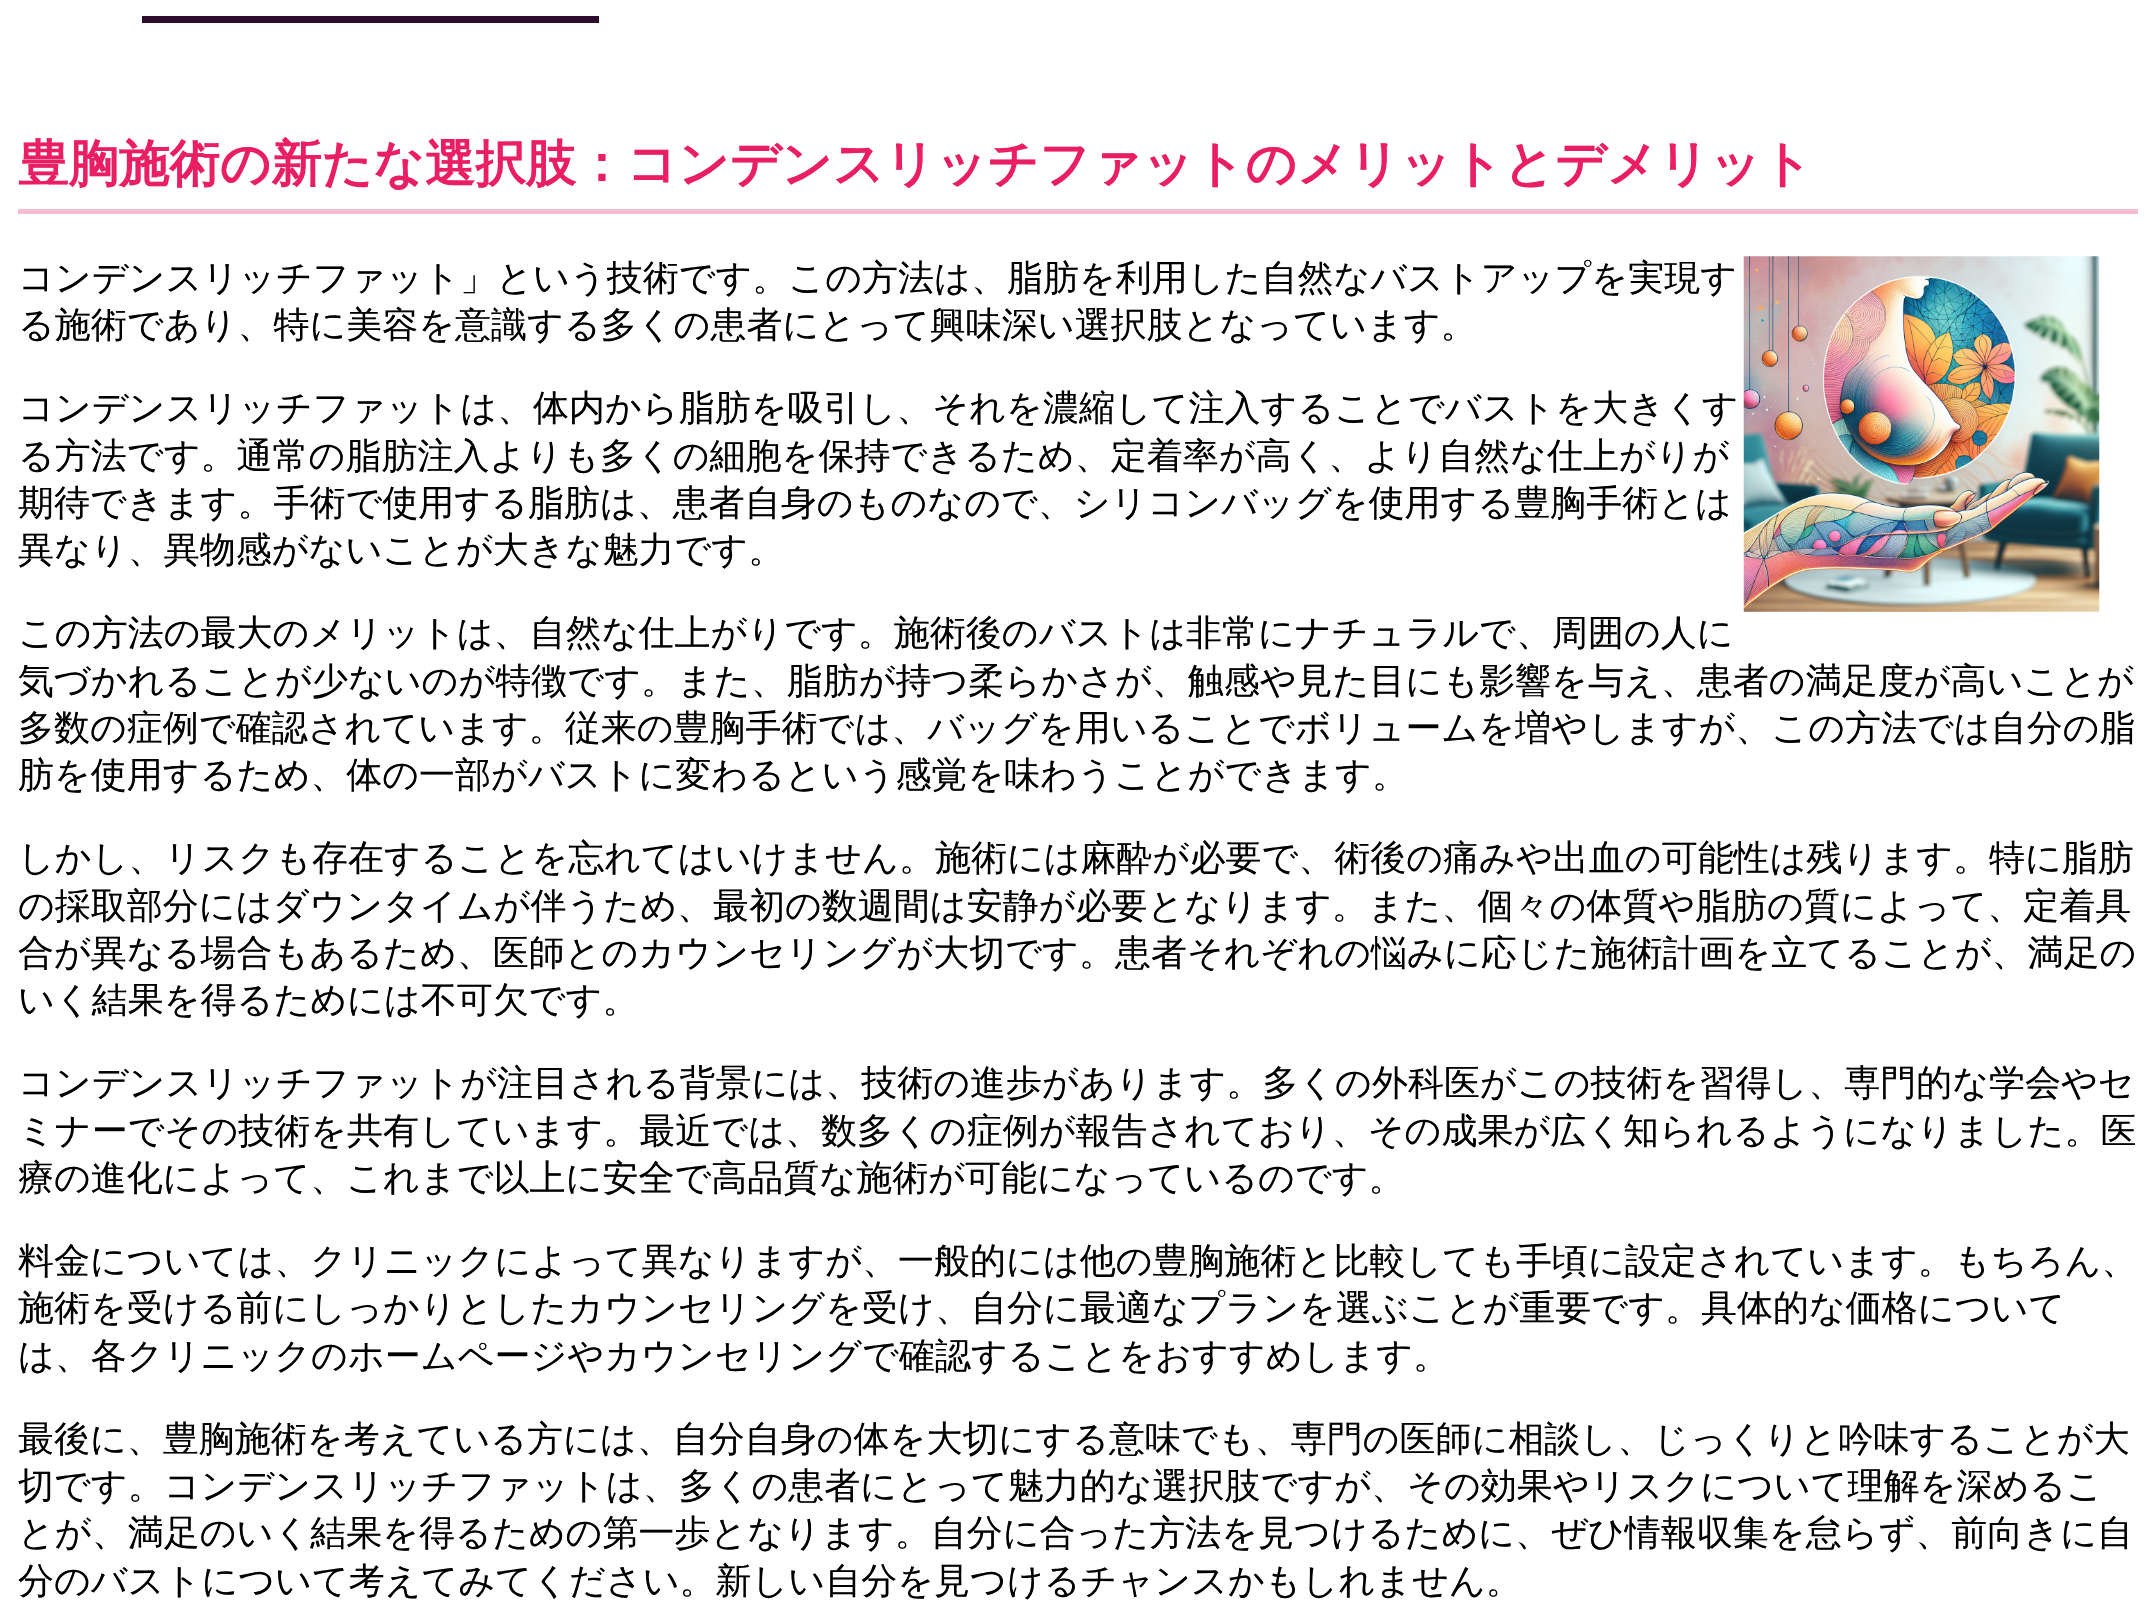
void draw(SkCanvas* canvas) {
    SkPaint paint;
    paint.setAntiAlias(true);
    canvas->clear(0xFFFFFFFF);
    paint.setColor(0xFF2D0E2A);
    canvas->drawRect(SkRect::MakeXYWH(142, 16, 457, 7), paint);
    paint.setColor(0xFFF8BBD0);
    canvas->drawRect(SkRect::MakeXYWH(18, 209, 2120, 5), paint);
    SkFont font1(fontMgr->matchFamilyStyle("WenQuanYi Zen Hei", SkFontStyle::Bold()), 50.4f);
    font1.setSubpixel(true);
    paint.setColor(0xFFE91E63);
    canvas->drawString("豊胸施術の新たな選択肢：コンデンスリッチファットのメリットとデメリット", 18, 181, font1, paint);
    SkFont font2(fontMgr->matchFamilyStyle("WenQuanYi Zen Hei", SkFontStyle(500, SkFontStyle::kNormal_Width, SkFontStyle::kUpright_Slant)), 36);
    font2.setSubpixel(true);
    paint.setColor(0xFF000000);
    canvas->drawString("コンデンスリッチファット」という技術です。この方法は、脂肪を利用した自然なバストアップを実現す", 18, 290, font2, paint);
    canvas->drawString("る施術であり、特に美容を意識する多くの患者にとって興味深い選択肢となっています。", 18, 337, font2, paint);
    canvas->drawImageRect(SkImages::DeferredFromEncodedData(SkData::MakeFromFileName("img1.png")), SkRect::MakeXYWH(1743, 256, 357, 356), SkSamplingOptions());
    canvas->drawString("コンデンスリッチファットは、体内から脂肪を吸引し、それを濃縮して注入することでバストを大きくす", 18, 420, font2, paint);
    canvas->drawString("る方法です。通常の脂肪注入よりも多くの細胞を保持できるため、定着率が高く、より自然な仕上がりが", 18, 468, font2, paint);
    canvas->drawString("期待できます。手術で使用する脂肪は、患者自身のものなので、シリコンバッグを使用する豊胸手術とは", 18, 515, font2, paint);
    canvas->drawString("異なり、異物感がないことが大きな魅力です。", 18, 562, font2, paint);
    canvas->drawString("この方法の最大のメリットは、自然な仕上がりです。施術後のバストは非常にナチュラルで、周囲の人に", 18, 645, font2, paint);
    canvas->drawString("気づかれることが少ないのが特徴です。また、脂肪が持つ柔らかさが、触感や見た目にも影響を与え、患者の満足度が高いことが", 18, 693, font2, paint);
    canvas->drawString("多数の症例で確認されています。従来の豊胸手術では、バッグを用いることでボリュームを増やしますが、この方法では自分の脂", 18, 740, font2, paint);
    canvas->drawString("肪を使用するため、体の一部がバストに変わるという感覚を味わうことができます。", 18, 787, font2, paint);
    canvas->drawString("しかし、リスクも存在することを忘れてはいけません。施術には麻酔が必要で、術後の痛みや出血の可能性は残ります。特に脂肪", 18, 870, font2, paint);
    canvas->drawString("の採取部分にはダウンタイムが伴うため、最初の数週間は安静が必要となります。また、個々の体質や脂肪の質によって、定着具", 18, 918, font2, paint);
    canvas->drawString("合が異なる場合もあるため、医師とのカウンセリングが大切です。患者それぞれの悩みに応じた施術計画を立てることが、満足の", 18, 965, font2, paint);
    canvas->drawString("いく結果を得るためには不可欠です。", 18, 1012, font2, paint);
    canvas->drawString("コンデンスリッチファットが注目される背景には、技術の進歩があります。多くの外科医がこの技術を習得し、専門的な学会やセ", 18, 1095, font2, paint);
    canvas->drawString("ミナーでその技術を共有しています。最近では、数多くの症例が報告されており、その成果が広く知られるようになりました。医", 18, 1143, font2, paint);
    canvas->drawString("療の進化によって、これまで以上に安全で高品質な施術が可能になっているのです。", 18, 1190, font2, paint);
    canvas->drawString("料金については、クリニックによって異なりますが、一般的には他の豊胸施術と比較しても手頃に設定されています。もちろん、", 18, 1273, font2, paint);
    canvas->drawString("施術を受ける前にしっかりとしたカウンセリングを受け、自分に最適なプランを選ぶことが重要です。具体的な価格について", 18, 1320, font2, paint);
    canvas->drawString("は、各クリニックのホームページやカウンセリングで確認することをおすすめします。", 18, 1368, font2, paint);
    canvas->drawString("最後に、豊胸施術を考えている方には、自分自身の体を大切にする意味でも、専門の医師に相談し、じっくりと吟味することが大", 18, 1451, font2, paint);
    canvas->drawString("切です。コンデンスリッチファットは、多くの患者にとって魅力的な選択肢ですが、その効果やリスクについて理解を深めるこ", 18, 1498, font2, paint);
    canvas->drawString("とが、満足のいく結果を得るための第一歩となります。自分に合った方法を見つけるために、ぜひ情報収集を怠らず、前向きに自", 18, 1545, font2, paint);
    canvas->drawString("分のバストについて考えてみてください。新しい自分を見つけるチャンスかもしれません。", 18, 1593, font2, paint);
}
